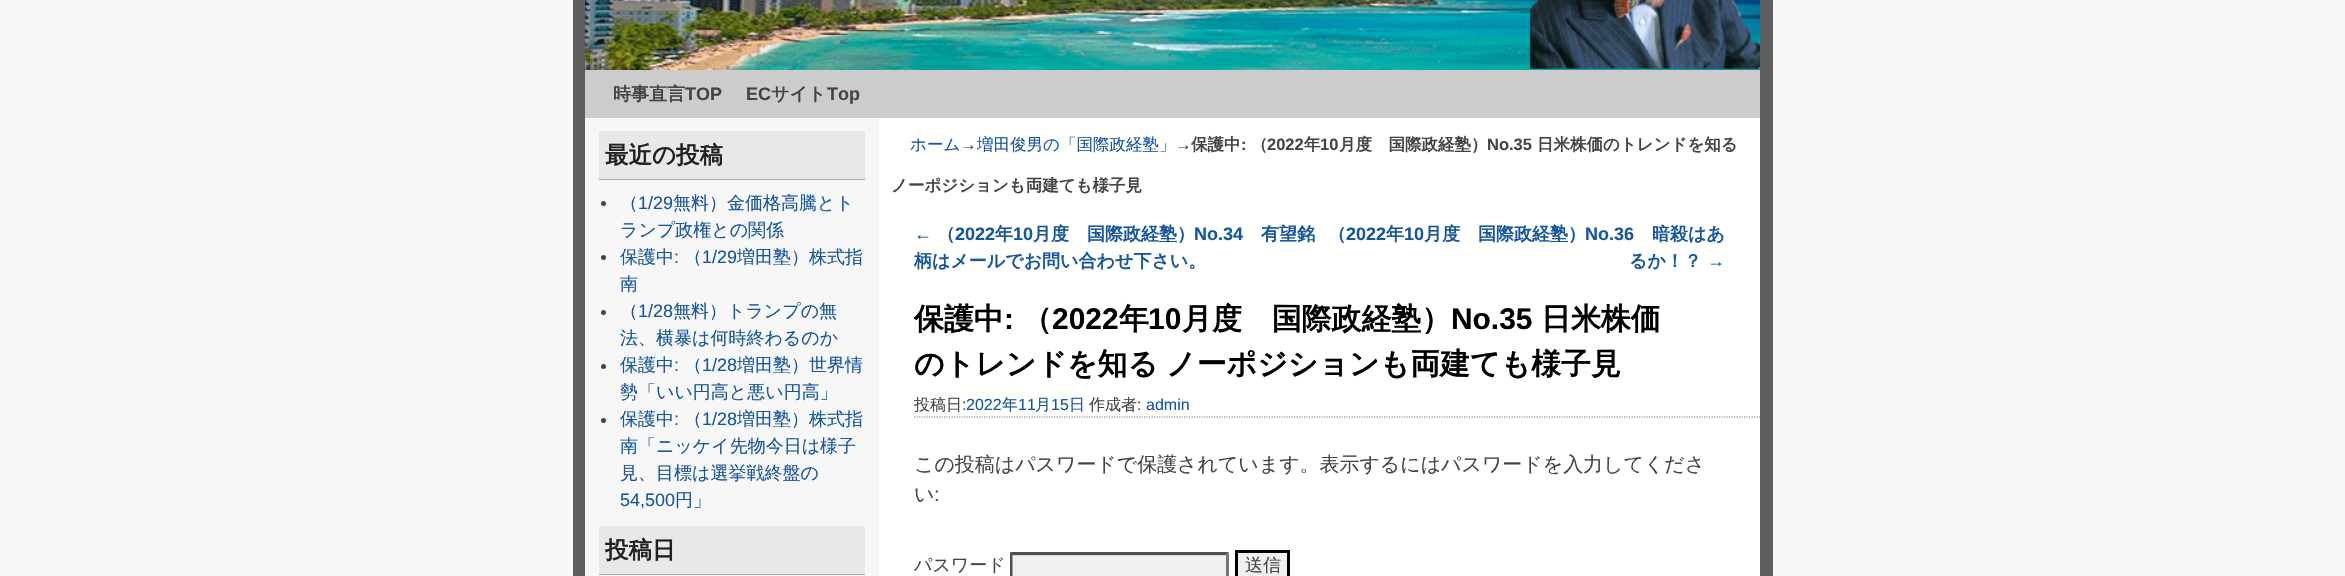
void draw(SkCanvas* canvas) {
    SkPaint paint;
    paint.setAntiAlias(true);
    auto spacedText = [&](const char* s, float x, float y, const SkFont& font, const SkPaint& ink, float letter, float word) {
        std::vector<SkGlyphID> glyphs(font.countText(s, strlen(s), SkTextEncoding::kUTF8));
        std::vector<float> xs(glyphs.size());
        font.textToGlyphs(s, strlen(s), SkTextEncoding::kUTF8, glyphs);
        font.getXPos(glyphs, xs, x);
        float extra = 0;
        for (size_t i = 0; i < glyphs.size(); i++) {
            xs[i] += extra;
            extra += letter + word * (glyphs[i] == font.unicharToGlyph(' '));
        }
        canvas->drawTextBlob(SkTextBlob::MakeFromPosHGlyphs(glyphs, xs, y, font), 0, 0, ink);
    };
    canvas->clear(0xFFF8F8F8);
    paint.setColor(0xFF5E5E5E);
    canvas->drawRect(SkRect::MakeXYWH(573, 0, 1200, 576), paint);
    canvas->drawImageRect(SkImages::DeferredFromEncodedData(SkData::MakeFromFileName("img1.png")), SkRect::MakeXYWH(585, 0, 1175, 70), SkSamplingOptions());
    paint.setColor(0xFFCCCCCC);
    canvas->drawRect(SkRect::MakeXYWH(585, 70, 1175, 48), paint);
    SkFont font1(fontMgr->matchFamilyStyle("WenQuanYi Zen Hei", SkFontStyle::Bold()), 18);
    font1.setSubpixel(true);
    paint.setColor(0xFF444444);
    canvas->drawString("時事直言", 613, 100, font1, paint);
    SkFont font2(fontMgr->matchFamilyStyle("Liberation Sans", SkFontStyle::Bold()), 18);
    font2.setSubpixel(true);
    canvas->drawString("TOP", 685, 100, font2, paint);
    canvas->drawString("EC", 746, 100, font2, paint);
    canvas->drawString("サイト", 771, 100, font1, paint);
    canvas->drawString("Top", 827, 100, font2, paint);
    paint.setColor(0xFFFFFFFE);
    canvas->drawRect(SkRect::MakeXYWH(879, 118, 881, 458), paint);
    paint.setColor(0xFFF7F7F7);
    canvas->drawRect(SkRect::MakeXYWH(585, 118, 294, 458), paint);
    paint.setColor(0xFFE8E8E8);
    canvas->drawRect(SkRect::MakeXYWH(599, 131, 266, 48), paint);
    paint.setColor(0xFFAAAAAA);
    canvas->drawRect(SkRect::MakeXYWH(599, 179, 266, 1), paint);
    SkFont font3(fontMgr->matchFamilyStyle("WenQuanYi Zen Hei", SkFontStyle::Bold()), 23.5f);
    font3.setSubpixel(true);
    paint.setColor(0xFF222222);
    canvas->drawString("最近の投稿", 605, 163, font3, paint);
    paint.setColor(0xFF444444);
    canvas->drawCircle(603.5f, 203.5f, 2.5f, paint);
    SkFont font4(fontMgr->matchFamilyStyle("WenQuanYi Zen Hei", SkFontStyle(500, SkFontStyle::kNormal_Width, SkFontStyle::kUpright_Slant)), 18);
    font4.setSubpixel(true);
    paint.setColor(0xFF16569E);
    canvas->drawString("（", 620, 209, font4, paint);
    SkFont font5(fontMgr->matchFamilyStyle("Liberation Sans", SkFontStyle::Normal()), 18);
    font5.setSubpixel(true);
    canvas->drawString("1/29", 638, 209, font5, paint);
    canvas->drawString("無料）金価格高騰とト", 673, 209, font4, paint);
    canvas->drawString("ランプ政権との関係", 620, 236, font4, paint);
    paint.setColor(0xFF444444);
    canvas->drawCircle(603.5f, 257.5f, 2.5f, paint);
    paint.setColor(0xFF16569E);
    canvas->drawString("保護中", 620, 263, font4, paint);
    canvas->drawString(":", 674, 263, font5, paint);
    canvas->drawString("（", 684, 263, font4, paint);
    canvas->drawString("1/29", 702, 263, font5, paint);
    canvas->drawString("増田塾）株式指", 737, 263, font4, paint);
    canvas->drawString("南", 620, 290, font4, paint);
    paint.setColor(0xFF444444);
    canvas->drawCircle(603.5f, 312.5f, 2.5f, paint);
    paint.setColor(0xFF16569E);
    canvas->drawString("（", 620, 317, font4, paint);
    canvas->drawString("1/28", 638, 317, font5, paint);
    canvas->drawString("無料）トランプの無", 673, 317, font4, paint);
    canvas->drawString("法、横暴は何時終わるのか", 620, 344, font4, paint);
    paint.setColor(0xFF444444);
    canvas->drawCircle(603.5f, 366.5f, 2.5f, paint);
    paint.setColor(0xFF16569E);
    canvas->drawString("保護中", 620, 371, font4, paint);
    canvas->drawString(":", 674, 371, font5, paint);
    canvas->drawString("（", 684, 371, font4, paint);
    canvas->drawString("1/28", 702, 371, font5, paint);
    canvas->drawString("増田塾）世界情", 737, 371, font4, paint);
    canvas->drawString("勢「いい円高と悪い円高」", 620, 398, font4, paint);
    paint.setColor(0xFF444444);
    canvas->drawCircle(603.5f, 420.5f, 2.5f, paint);
    paint.setColor(0xFF16569E);
    canvas->drawString("保護中", 620, 425, font4, paint);
    canvas->drawString(":", 674, 425, font5, paint);
    canvas->drawString("（", 684, 425, font4, paint);
    canvas->drawString("1/28", 702, 425, font5, paint);
    canvas->drawString("増田塾）株式指", 737, 425, font4, paint);
    canvas->drawString("南「ニッケイ先物今日は様子", 620, 452, font4, paint);
    canvas->drawString("見、目標は選挙戦終盤の", 620, 479, font4, paint);
    canvas->drawString("54,500", 620, 506, font5, paint);
    canvas->drawString("円」", 675, 506, font4, paint);
    paint.setColor(0xFFE8E8E8);
    canvas->drawRect(SkRect::MakeXYWH(599, 526, 266, 48), paint);
    paint.setColor(0xFFAAAAAA);
    canvas->drawRect(SkRect::MakeXYWH(599, 574, 266, 1), paint);
    paint.setColor(0xFF222222);
    canvas->drawString("投稿日", 605, 558, font3, paint);
    SkFont font6(fontMgr->matchFamilyStyle("WenQuanYi Zen Hei", SkFontStyle(500, SkFontStyle::kNormal_Width, SkFontStyle::kUpright_Slant)), 16.5f);
    font6.setSubpixel(true);
    paint.setColor(0xFF16569E);
    canvas->drawString("ホーム", 910, 150, font6, paint);
    SkFont font7(fontMgr->matchFamilyStyle("Liberation Sans", SkFontStyle::Normal()), 16.5f);
    font7.setSubpixel(true);
    paint.setColor(0xFF444444);
    canvas->drawString("→", 960, 150, font7, paint);
    paint.setColor(0xFF16569E);
    canvas->drawString("増田俊男の「国際政経塾」", 977, 150, font6, paint);
    paint.setColor(0xFF444444);
    canvas->drawString("→", 1175, 150, font7, paint);
    SkFont font8(fontMgr->matchFamilyStyle("WenQuanYi Zen Hei", SkFontStyle::Bold()), 16.5f);
    font8.setSubpixel(true);
    canvas->drawString("保護中", 1191, 150, font8, paint);
    SkFont font9(fontMgr->matchFamilyStyle("Liberation Sans", SkFontStyle::Bold()), 16.5f);
    font9.setSubpixel(true);
    canvas->drawString(":", 1241, 150, font9, paint);
    canvas->drawString("（", 1251, 150, font8, paint);
    canvas->drawString("2022", 1267, 150, font9, paint);
    canvas->drawString("年", 1304, 150, font8, paint);
    canvas->drawString("10", 1320, 150, font9, paint);
    canvas->drawString("月度　国際政経塾）", 1339, 150, font8, paint);
    canvas->drawString("No.35", 1487, 150, font9, paint);
    canvas->drawString("日米株価のトレンドを知る", 1537, 150, font8, paint);
    canvas->drawString("ノーポジションも両建ても様子見", 891, 191, font8, paint);
    paint.setColor(0xFF16569E);
    canvas->drawString("←", 914, 240, font5, paint);
    canvas->drawString("（", 937, 240, font1, paint);
    canvas->drawString("2022", 955, 240, font2, paint);
    canvas->drawString("年", 995, 240, font1, paint);
    canvas->drawString("10", 1013, 240, font2, paint);
    canvas->drawString("月度　国際政経塾）", 1033, 240, font1, paint);
    canvas->drawString("No.34", 1194, 240, font2, paint);
    canvas->drawString("有望銘", 1261, 240, font1, paint);
    canvas->drawString("柄はメールでお問い合わせ下さい。", 914, 267, font1, paint);
    canvas->drawString("（", 1328, 240, font1, paint);
    canvas->drawString("2022", 1346, 240, font2, paint);
    canvas->drawString("年", 1386, 240, font1, paint);
    canvas->drawString("10", 1404, 240, font2, paint);
    canvas->drawString("月度　国際政経塾）", 1424, 240, font1, paint);
    canvas->drawString("No.36", 1585, 240, font2, paint);
    canvas->drawString("暗殺はあ", 1652, 240, font1, paint);
    canvas->drawString("るか！？", 1629, 267, font1, paint);
    canvas->drawString("→", 1707, 267, font5, paint);
    SkFont font10(fontMgr->matchFamilyStyle("WenQuanYi Zen Hei", SkFontStyle::Bold()), 29.9f);
    font10.setSubpixel(true);
    paint.setColor(0xFF000000);
    canvas->drawString("保護中", 914, 329, font10, paint);
    SkFont font11(fontMgr->matchFamilyStyle("Liberation Sans", SkFontStyle::Bold()), 29.9f);
    font11.setSubpixel(true);
    canvas->drawString(":", 1004, 329, font11, paint);
    canvas->drawString("（", 1022, 329, font10, paint);
    canvas->drawString("2022", 1052, 329, font11, paint);
    canvas->drawString("年", 1119, 329, font10, paint);
    canvas->drawString("10", 1148, 329, font11, paint);
    canvas->drawString("月度　国際政経塾）", 1182, 329, font10, paint);
    canvas->drawString("No.35", 1451, 329, font11, paint);
    canvas->drawString("日米株価", 1541, 329, font10, paint);
    spacedText("のトレンドを知る ノーポジションも両建ても様子見", 914, 374, font10, paint, 0, -1);
    canvas->save();
    canvas->clipRect(SkRect::MakeXYWH(879, 211, 881, 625));
    paint.setStyle(SkPaint::kStroke_Style);
    paint.setStrokeWidth(1.2f);
    paint.setColor(0xFF777777);
    paint.setPathEffect(SkDashPathEffect::Make({{1.25f, 1.25f}}, 0));
    canvas->drawPath(SkPathBuilder().moveTo(914, 417).lineTo(1775, 417).detach(), paint);
    paint.setPathEffect(nullptr);
    canvas->restore();
    SkFont font12(fontMgr->matchFamilyStyle("WenQuanYi Zen Hei", SkFontStyle(500, SkFontStyle::kNormal_Width, SkFontStyle::kUpright_Slant)), 16);
    font12.setSubpixel(true);
    paint.setStyle(SkPaint::kFill_Style);
    paint.setColor(0xFF444444);
    canvas->drawString("投稿日", 914, 410, font12, paint);
    SkFont font13(fontMgr->matchFamilyStyle("Liberation Sans", SkFontStyle::Normal()), 16);
    font13.setSubpixel(true);
    canvas->drawString(":", 962, 410, font13, paint);
    paint.setColor(0xFF16569E);
    canvas->drawString("2022", 966, 410, font13, paint);
    canvas->drawString("年", 1002, 410, font12, paint);
    canvas->drawString("11", 1018, 410, font13, paint);
    canvas->drawString("月", 1035, 410, font12, paint);
    canvas->drawString("15", 1051, 410, font13, paint);
    canvas->drawString("日", 1069, 410, font12, paint);
    paint.setColor(0xFF444444);
    canvas->drawString("作成者", 1089, 410, font12, paint);
    canvas->drawString(":", 1137, 410, font13, paint);
    paint.setColor(0xFF16569E);
    canvas->drawString("admin", 1146, 410, font13, paint);
    SkFont font14(fontMgr->matchFamilyStyle("WenQuanYi Zen Hei", SkFontStyle(500, SkFontStyle::kNormal_Width, SkFontStyle::kUpright_Slant)), 19.95f);
    font14.setSubpixel(true);
    paint.setColor(0xFF444444);
    canvas->drawString("この投稿はパスワードで保護されています。表示するにはパスワードを入力してくださ", 914, 471, font14, paint);
    canvas->drawString("い", 914, 501, font14, paint);
    SkFont font15(fontMgr->matchFamilyStyle("Liberation Sans", SkFontStyle::Normal()), 19.95f);
    font15.setSubpixel(true);
    canvas->drawString(":", 934, 501, font15, paint);
    canvas->drawString("パスワード", 914, 571, font4, paint);
    paint.setColor(0xFFF0F0F0);
    canvas->drawRect(SkRect::MakeXYWH(1010, 553, 219, 23), paint);
    paint.setColor(0xFFD8D8D8);
    canvas->drawRect(SkRect::MakeXYWH(1013, 555, 213, 1), paint);
    paint.setColor(0xFF4F4F4F);
    canvas->drawPath(SkPathBuilder().moveTo(1010, 552).lineTo(1229, 552).lineTo(1226, 555).lineTo(1012, 555).close().detach(), paint);
    paint.setColor(0xFF767676);
    canvas->drawPath(SkPathBuilder().moveTo(1229, 552.5f).lineTo(1229, 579).lineTo(1226, 576).lineTo(1226, 555).close().detach(), paint);
    paint.setColor(0xFF4F4F4F);
    canvas->drawPath(SkPathBuilder().moveTo(1010, 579).lineTo(1010, 552.5f).lineTo(1012.5f, 555).lineTo(1012.5f, 576).close().detach(), paint);
    paint.setColor(0xFFF0F0F0);
    canvas->drawRect(SkRect::MakeXYWH(1236.5f, 551.5f, 52, 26), paint);
    paint.setStyle(SkPaint::kStroke_Style);
    paint.setStrokeWidth(3);
    paint.setColor(0xFF000000);
    canvas->drawRect(SkRect::MakeXYWH(1236.5f, 551.5f, 52, 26), paint);
    paint.setStyle(SkPaint::kFill_Style);
    paint.setColor(0xFF444444);
    canvas->drawString("送信", 1245, 571, font4, paint);
}
